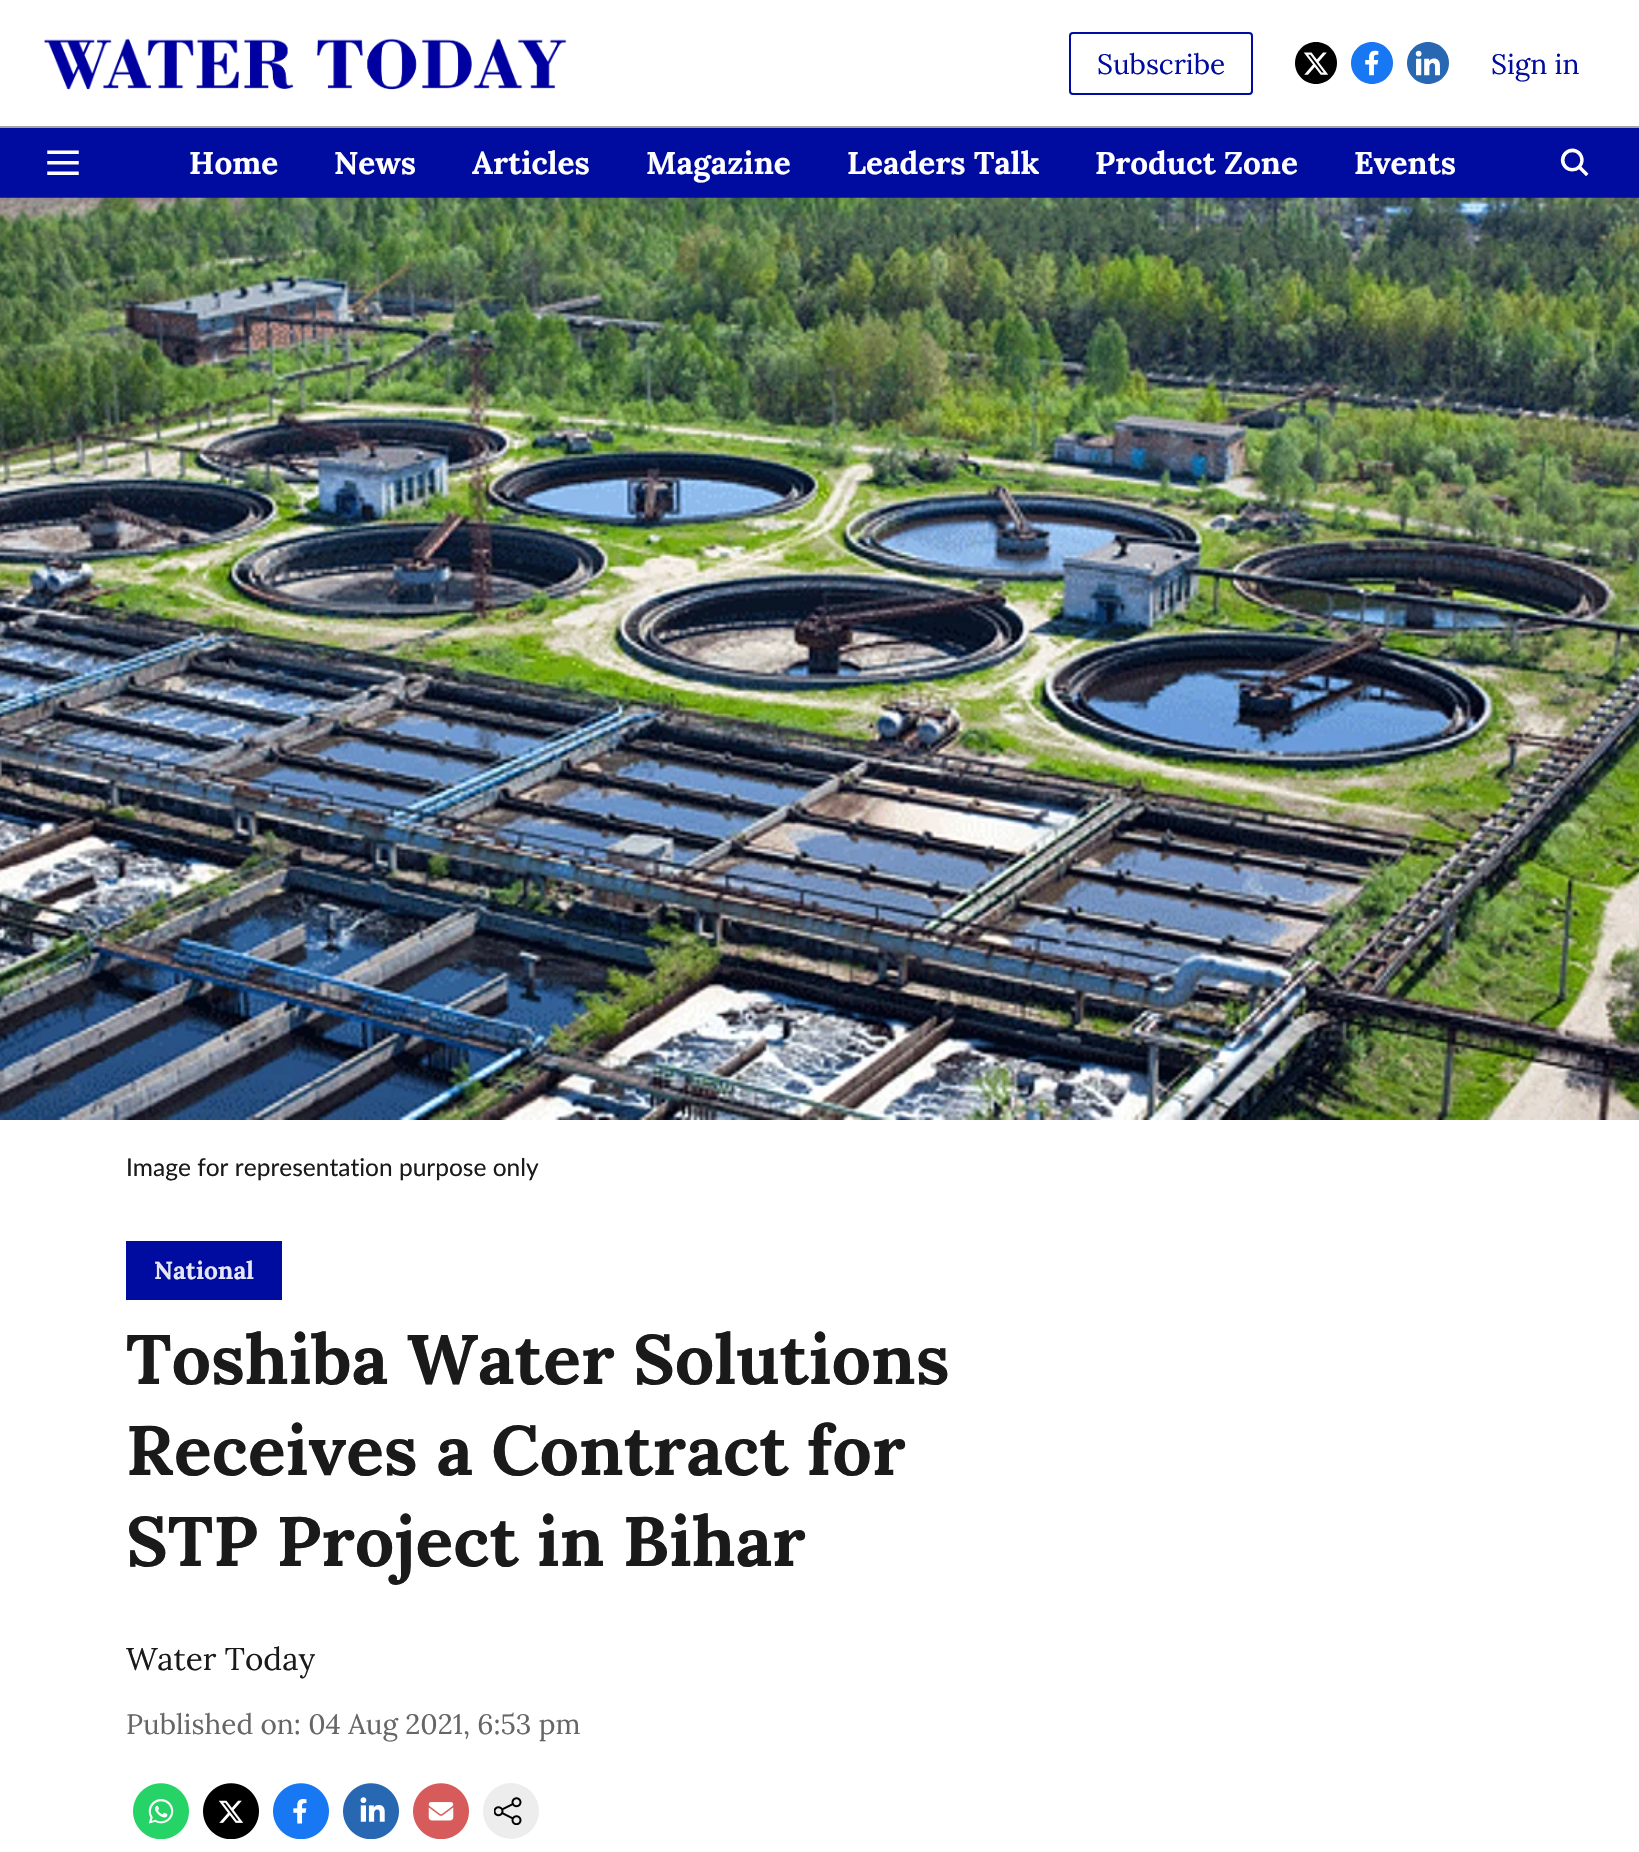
void draw(SkCanvas* canvas) {
    SkPaint paint;
    paint.setAntiAlias(true);
    canvas->clear(0xFFFFFFFF);
    paint.setColor(0xFFA4A4A4);
    canvas->drawRect(SkRect::MakeXYWH(0, 126, 1639, 2), paint);
    canvas->drawImageRect(SkImages::DeferredFromEncodedData(SkData::MakeFromFileName("img1.png")), SkRect::MakeXYWH(43, 38, 524, 52), SkSamplingOptions());
    paint.setStyle(SkPaint::kStroke_Style);
    paint.setStrokeWidth(2);
    paint.setColor(0xFF000B9F);
    canvas->drawRoundRect(SkRect::MakeXYWH(1070, 33, 182, 61), 3, 3, paint);
    SkFont font1(fontMgr->matchFamilyStyle("Lora", SkFontStyle::Normal()), 28);
    font1.setSubpixel(true);
    paint.setStyle(SkPaint::kFill_Style);
    canvas->drawString("Subscribe", 1097, 74, font1, paint);
    canvas->drawImageRect(SkImages::DeferredFromEncodedData(SkData::MakeFromFileName("img2.png")), SkRect::MakeXYWH(1295, 42, 42, 42), SkSamplingOptions());
    canvas->drawImageRect(SkImages::DeferredFromEncodedData(SkData::MakeFromFileName("img3.png")), SkRect::MakeXYWH(1351, 42, 42, 42), SkSamplingOptions());
    canvas->drawImageRect(SkImages::DeferredFromEncodedData(SkData::MakeFromFileName("img4.png")), SkRect::MakeXYWH(1407, 42, 42, 42), SkSamplingOptions());
    canvas->drawString("Sign in", 1491, 74, font1, paint);
    canvas->drawRect(SkRect::MakeXYWH(0, 128, 1639, 70), paint);
    canvas->drawImageRect(SkImages::DeferredFromEncodedData(SkData::MakeFromFileName("img5.png")), SkRect::MakeXYWH(47, 150, 32, 25), SkSamplingOptions());
    SkFont font2(fontMgr->matchFamilyStyle("Lora", SkFontStyle::Bold()), 31.5f);
    font2.setSubpixel(true);
    paint.setColor(0xFFFFFFFF);
    canvas->drawString("Home", 189, 174, font2, paint);
    canvas->drawString("News", 334, 174, font2, paint);
    canvas->drawString("Articles", 472, 174, font2, paint);
    canvas->drawString("Magazine", 646, 174, font2, paint);
    canvas->drawString("Leaders Talk", 847, 174, font2, paint);
    canvas->drawString("Product Zone", 1095, 174, font2, paint);
    canvas->drawString("Events", 1354, 174, font2, paint);
    canvas->drawImageRect(SkImages::DeferredFromEncodedData(SkData::MakeFromFileName("img6.png")), SkRect::MakeXYWH(1560, 148, 29, 29), SkSamplingOptions());
    canvas->drawImageRect(SkImages::DeferredFromEncodedData(SkData::MakeFromFileName("img7.png")), SkRect::MakeXYWH(0, 197, 1639, 923), SkSamplingOptions());
    SkFont font3(fontMgr->matchFamilyStyle("Lato", SkFontStyle::Normal()), 24.5f);
    font3.setSubpixel(true);
    paint.setColor(0xFF1A1A1A);
    canvas->drawString("Image for representation purpose only", 126, 1176, font3, paint);
    paint.setColor(0xFF000B9F);
    canvas->drawRect(SkRect::MakeXYWH(126, 1241, 156, 59), paint);
    SkFont font4(fontMgr->matchFamilyStyle("Lora", SkFontStyle::Bold()), 24.5f);
    font4.setSubpixel(true);
    paint.setColor(0xFFE6E7F5);
    canvas->drawString("National", 154, 1279, font4, paint);
    SkFont font5(fontMgr->matchFamilyStyle("Lora", SkFontStyle::Bold()), 70);
    font5.setSubpixel(true);
    paint.setColor(0xFF1A1A1A);
    canvas->drawString("Toshiba Water Solutions", 126, 1384, font5, paint);
    canvas->drawString("Receives a Contract for", 126, 1475, font5, paint);
    canvas->drawString("STP Project in Bihar", 126, 1566, font5, paint);
    SkFont font6(fontMgr->matchFamilyStyle("Lora", SkFontStyle::Normal()), 31.5f);
    font6.setSubpixel(true);
    canvas->drawString("Water Today", 126, 1670, font6, paint);
    paint.setColor(0xFF666666);
    canvas->drawString("Published on: 04 Aug 2021, 6:53 pm", 126, 1734, font1, paint);
    canvas->drawImageRect(SkImages::DeferredFromEncodedData(SkData::MakeFromFileName("img8.png")), SkRect::MakeXYWH(133, 1783, 56, 56), SkSamplingOptions());
    canvas->drawImageRect(SkImages::DeferredFromEncodedData(SkData::MakeFromFileName("img9.png")), SkRect::MakeXYWH(203, 1783, 56, 56), SkSamplingOptions());
    canvas->drawImageRect(SkImages::DeferredFromEncodedData(SkData::MakeFromFileName("img10.png")), SkRect::MakeXYWH(273, 1783, 56, 56), SkSamplingOptions());
    canvas->drawImageRect(SkImages::DeferredFromEncodedData(SkData::MakeFromFileName("img11.png")), SkRect::MakeXYWH(343, 1783, 56, 56), SkSamplingOptions());
    canvas->drawImageRect(SkImages::DeferredFromEncodedData(SkData::MakeFromFileName("img12.png")), SkRect::MakeXYWH(413, 1783, 56, 56), SkSamplingOptions());
    paint.setColor(0xFFEDEDED);
    canvas->drawCircle(511, 1811, 28, paint);
    canvas->drawImageRect(SkImages::DeferredFromEncodedData(SkData::MakeFromFileName("img13.png")), SkRect::MakeXYWH(494, 1797, 28, 28), SkSamplingOptions());
}
